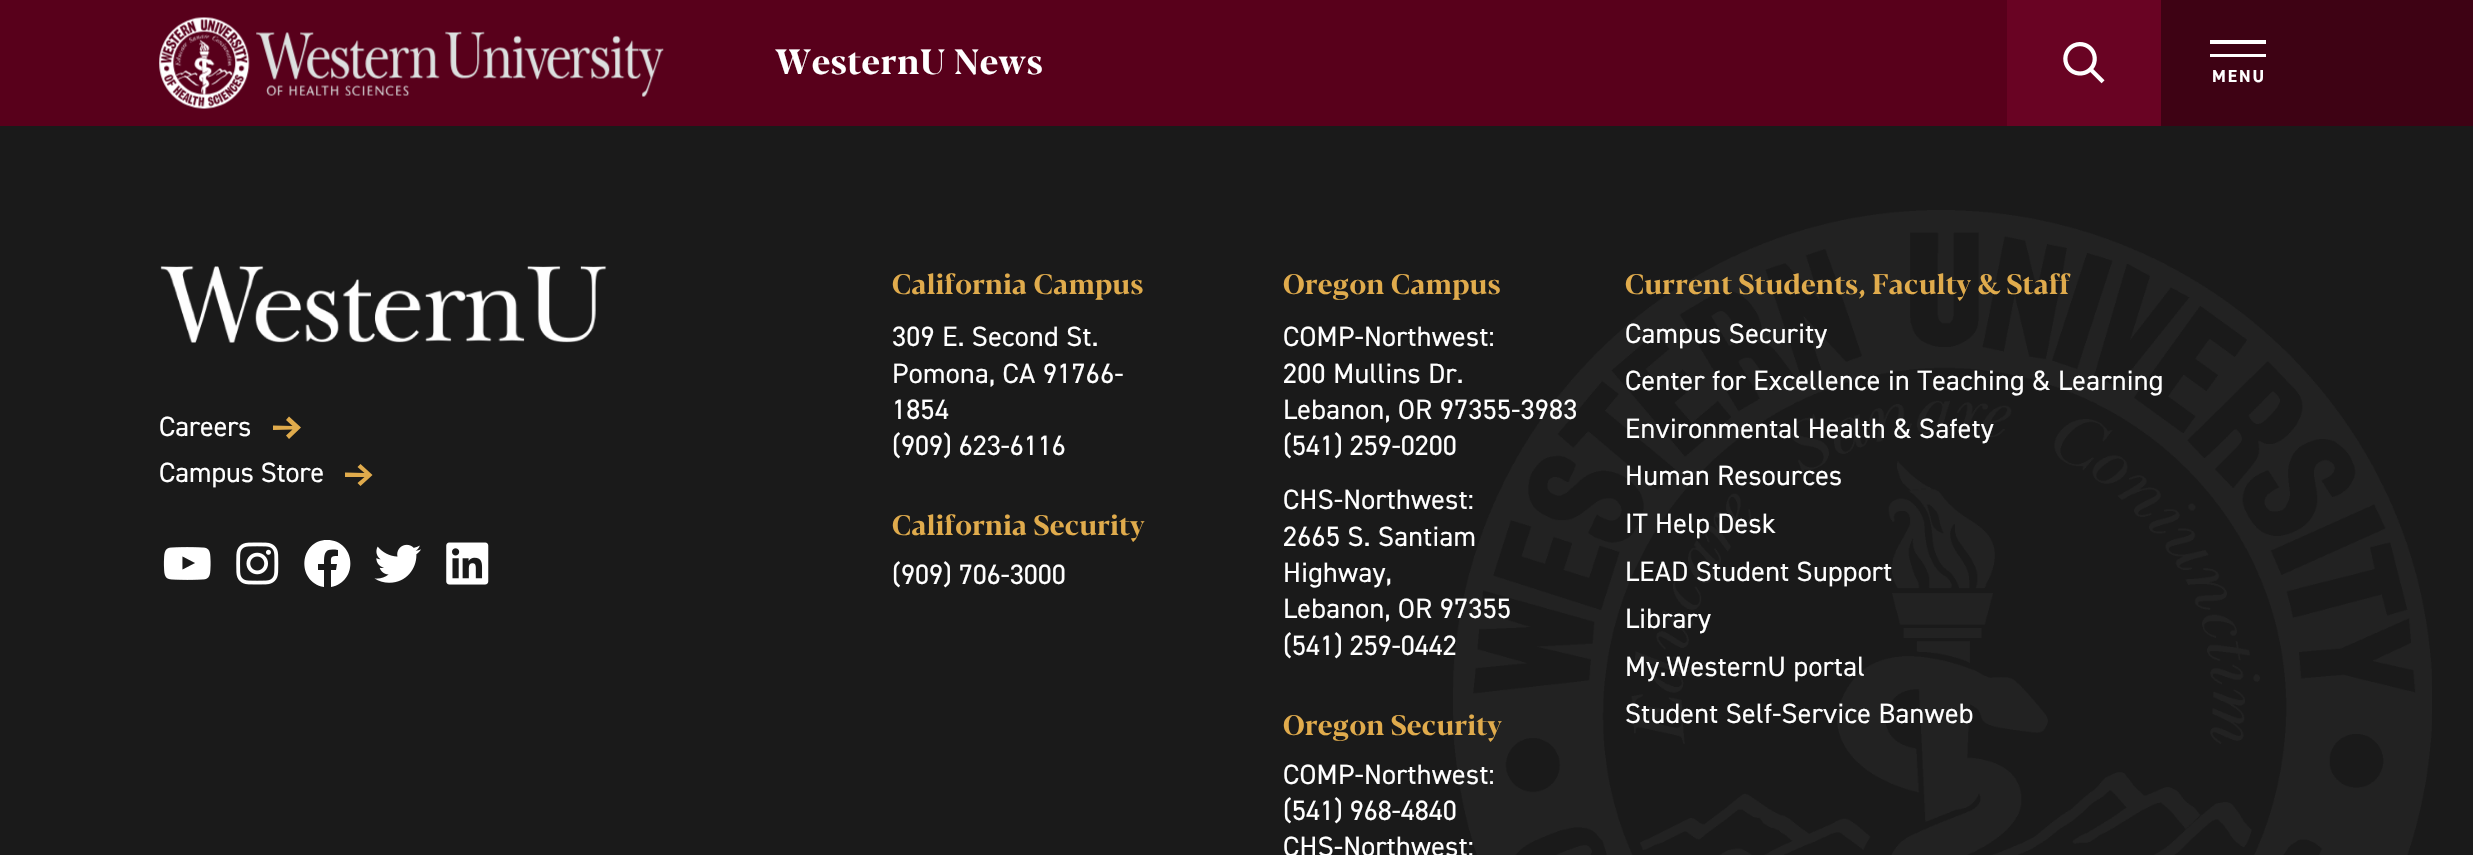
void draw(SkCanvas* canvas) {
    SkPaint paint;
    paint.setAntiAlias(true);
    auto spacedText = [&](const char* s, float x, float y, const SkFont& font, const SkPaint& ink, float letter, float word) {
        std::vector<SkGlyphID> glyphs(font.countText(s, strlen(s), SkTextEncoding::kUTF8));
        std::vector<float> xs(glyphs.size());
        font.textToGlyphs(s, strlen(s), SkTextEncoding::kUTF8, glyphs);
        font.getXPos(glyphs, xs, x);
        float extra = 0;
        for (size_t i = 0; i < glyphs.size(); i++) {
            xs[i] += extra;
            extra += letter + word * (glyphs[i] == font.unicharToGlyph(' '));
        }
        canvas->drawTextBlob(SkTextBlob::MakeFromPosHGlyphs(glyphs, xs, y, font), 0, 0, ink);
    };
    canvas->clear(0xFF1A1A1A);
    paint.setColor(0xFF58001B);
    canvas->drawRect(SkRect::MakeXYWH(0, 0, 2007, 126), paint);
    canvas->drawImageRect(SkImages::DeferredFromEncodedData(SkData::MakeFromFileName("img1.png")), SkRect::MakeXYWH(159, 17, 505, 92), SkSamplingOptions());
    SkFont font1(fontMgr->matchFamilyStyle("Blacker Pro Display", SkFontStyle::Bold()), 35);
    font1.setSubpixel(true);
    paint.setColor(0xFFFFFFFF);
    spacedText("WesternU News", 775, 74, font1, paint, 0.75f, 0);
    paint.setColor(0xFF690323);
    canvas->drawRect(SkRect::MakeXYWH(2007, 0, 154, 126), paint);
    canvas->drawImageRect(SkImages::DeferredFromEncodedData(SkData::MakeFromFileName("img2.png")), SkRect::MakeXYWH(2063, 42, 42, 42), SkSamplingOptions());
    paint.setColor(0xFF3E0214);
    canvas->drawRect(SkRect::MakeXYWH(2161, 0, 312, 126), paint);
    paint.setColor(0xFFFFFFFF);
    canvas->drawPath(SkPathBuilder().moveTo(2210, 40).lineTo(2266, 40).lineTo(2266, 44).lineTo(2210, 44).close().moveTo(2210, 57).lineTo(2266, 57).lineTo(2266, 54).lineTo(2210, 54).close().detach(), paint);
    SkFont font2(fontMgr->matchFamilyStyle("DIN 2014", SkFontStyle::Bold()), 17.5f);
    font2.setSubpixel(true);
    spacedText("MENU", 2212, 82, font2, paint, 2, 0);
    canvas->drawImageRect(SkImages::DeferredFromEncodedData(SkData::MakeFromFileName("img3.png")), SkRect::MakeXYWH(1453, 210, 979, 645), SkSamplingOptions());
    canvas->drawImageRect(SkImages::DeferredFromEncodedData(SkData::MakeFromFileName("img4.png")), SkRect::MakeXYWH(160, 266, 447, 77), SkSamplingOptions());
    SkFont font3(fontMgr->matchFamilyStyle("DIN 2014", SkFontStyle::Normal()), 28);
    font3.setSubpixel(true);
    canvas->drawString("Careers", 159, 436, font3, paint);
    paint.setColor(0xFFE0AB4C);
    canvas->drawPath(SkPathBuilder().moveTo(289, 416.5f).lineTo(286, 420).lineTo(292.5f, 426).lineTo(273, 425.5f).lineTo(273, 430).lineTo(292.5f, 429.5f).lineTo(286, 435.5f).lineTo(289, 439).lineTo(301, 427.5f).close().detach(), paint);
    paint.setColor(0xFFFFFFFF);
    canvas->drawString("Campus Store", 159, 482, font3, paint);
    paint.setColor(0xFFE0AB4C);
    canvas->drawPath(SkPathBuilder().moveTo(360.5f, 464).lineTo(357.5f, 467).lineTo(364.5f, 473).lineTo(345, 472.5f).lineTo(345, 477).lineTo(364.5f, 477).lineTo(357.5f, 483).lineTo(360.5f, 486).lineTo(372.5f, 475).close().detach(), paint);
    canvas->drawImageRect(SkImages::DeferredFromEncodedData(SkData::MakeFromFileName("img5.png")), SkRect::MakeXYWH(163, 547, 48, 33), SkSamplingOptions());
    canvas->drawImageRect(SkImages::DeferredFromEncodedData(SkData::MakeFromFileName("img6.png")), SkRect::MakeXYWH(236, 542, 43, 43), SkSamplingOptions());
    paint.setColor(0xFFFFFFFF);
    canvas->drawPath(SkPathBuilder().moveTo(327, 540).cubicTo(299, 540, 296, 582, 324, 587).lineTo(324, 570).lineTo(318, 570).lineTo(318, 564).lineTo(324, 564).cubicTo(324, 552, 325, 548, 338, 550).lineTo(338, 556).cubicTo(330, 556, 331, 557, 331, 564).lineTo(337, 564).lineTo(336, 570).lineTo(331, 570).lineTo(331, 587).cubicTo(359, 582, 356, 540, 327, 540).close().detach(), paint);
    canvas->drawImageRect(SkImages::DeferredFromEncodedData(SkData::MakeFromFileName("img7.png")), SkRect::MakeXYWH(374, 544, 47, 39), SkSamplingOptions());
    canvas->drawImageRect(SkImages::DeferredFromEncodedData(SkData::MakeFromFileName("img8.png")), SkRect::MakeXYWH(446, 542, 43, 43), SkSamplingOptions());
    SkFont font4(fontMgr->matchFamilyStyle("Blacker Pro Display", SkFontStyle::Bold()), 28);
    font4.setSubpixel(true);
    paint.setColor(0xFFE0AB4C);
    spacedText("California Campus", 892, 294, font4, paint, 0.3f, 0);
    paint.setColor(0xFFFFFFFF);
    spacedText("309 E. Second St.", 892, 346, font3, paint, 0.3f, 0);
    spacedText("Pomona, CA 91766-", 892, 383, font3, paint, 0.3f, 0);
    spacedText("1854", 892, 419, font3, paint, 0.3f, 0);
    canvas->drawString("(909) 623-6116", 892, 455, font3, paint);
    paint.setColor(0xFFE0AB4C);
    spacedText("California Security", 892, 535, font4, paint, 0.3f, 0);
    paint.setColor(0xFFFFFFFF);
    canvas->drawString("(909) 706-3000", 892, 584, font3, paint);
    paint.setColor(0xFFE0AB4C);
    spacedText("Oregon Campus", 1283, 294, font4, paint, 0.3f, 0);
    paint.setColor(0xFFFFFFFF);
    spacedText("COMP-Northwest:", 1283, 346, font3, paint, 0.3f, 0);
    spacedText("200 Mullins Dr.", 1283, 383, font3, paint, 0.3f, 0);
    spacedText("Lebanon, OR 97355-3983", 1283, 419, font3, paint, 0.3f, 0);
    canvas->drawString("(541) 259-0200", 1283, 455, font3, paint);
    spacedText("CHS-Northwest:", 1283, 509, font3, paint, 0.3f, 0);
    spacedText("2665 S. Santiam", 1283, 546, font3, paint, 0.3f, 0);
    spacedText("Highway,", 1283, 582, font3, paint, 0.3f, 0);
    spacedText("Lebanon, OR 97355", 1283, 618, font3, paint, 0.3f, 0);
    canvas->drawString("(541) 259-0442", 1283, 655, font3, paint);
    paint.setColor(0xFFE0AB4C);
    spacedText("Oregon Security", 1283, 735, font4, paint, 0.3f, 0);
    paint.setColor(0xFFFFFFFF);
    spacedText("COMP-Northwest:", 1283, 784, font3, paint, 0.3f, 0);
    canvas->drawString("(541) 968-4840", 1283, 820, font3, paint);
    spacedText("CHS-Northwest:", 1283, 856, font3, paint, 0.3f, 0);
    paint.setColor(0xFFE0AB4C);
    spacedText("Current Students, Faculty & Staff", 1625, 294, font4, paint, 0.3f, 0);
    paint.setColor(0xFFFFFFFF);
    spacedText("Campus Security", 1625, 343, font3, paint, 0.3f, 0);
    spacedText("Center for Excellence in Teaching & Learning", 1625, 390, font3, paint, 0.3f, 0);
    spacedText("Environmental Health & Safety", 1625, 438, font3, paint, 0.3f, 0);
    spacedText("Human Resources", 1625, 485, font3, paint, 0.3f, 0);
    spacedText("IT Help Desk", 1625, 533, font3, paint, 0.3f, 0);
    spacedText("LEAD Student Support", 1625, 581, font3, paint, 0.3f, 0);
    spacedText("Library", 1625, 628, font3, paint, 0.3f, 0);
    spacedText("My.WesternU portal", 1625, 676, font3, paint, 0.3f, 0);
    spacedText("Student Self-Service Banweb", 1625, 723, font3, paint, 0.3f, 0);
}
